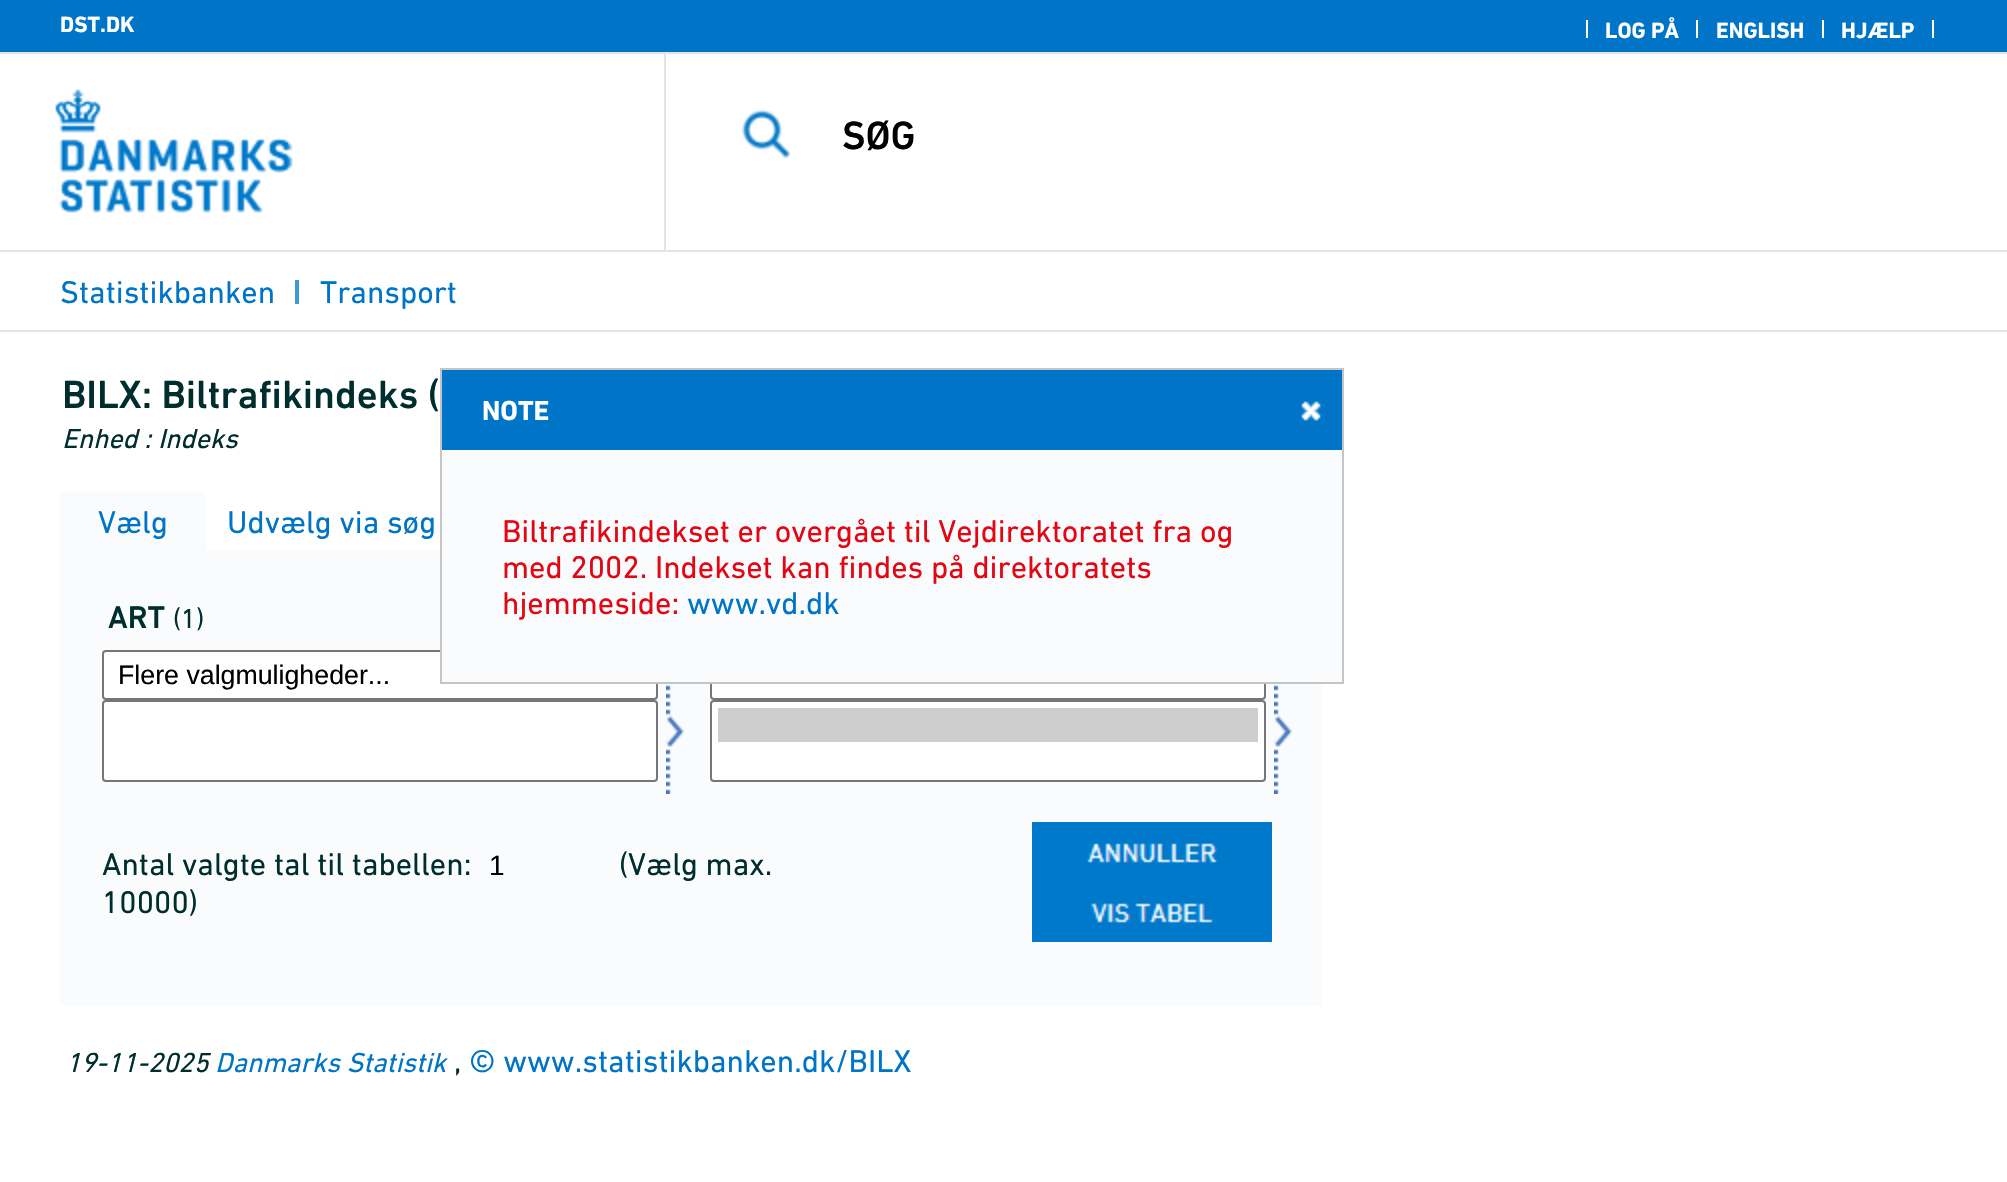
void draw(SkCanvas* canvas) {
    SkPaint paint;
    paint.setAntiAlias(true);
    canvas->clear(0xFFFFFFFF);
    paint.setColor(0xFF0074C6);
    canvas->drawRect(SkRect::MakeXYWH(0, 0, 2007, 52), paint);
    paint.setColor(0xFFE4E4E4);
    canvas->drawRect(SkRect::MakeXYWH(0, 52, 2007, 2), paint);
    SkFont font1(fontMgr->matchFamilyStyle("DIN Next", SkFontStyle::Bold()), 22.5f);
    font1.setSubpixel(true);
    paint.setColor(0xFFFFFFFF);
    canvas->drawString("DST.DK", 60, 32, font1, paint);
    canvas->drawImageRect(SkImages::DeferredFromEncodedData(SkData::MakeFromFileName("img1.png")), SkRect::MakeXYWH(55, 54, 611, 196), SkSamplingOptions());
    paint.setColor(0xFFE4E4E4);
    canvas->drawRect(SkRect::MakeXYWH(0, 250, 2007, 2), paint);
    paint.setColor(0xFFFFFFFF);
    canvas->drawRect(SkRect::MakeXYWH(1586, 20, 2, 18), paint);
    canvas->drawString("LOG PÅ", 1605, 38, font1, paint);
    canvas->drawRect(SkRect::MakeXYWH(1696, 20, 2, 18), paint);
    canvas->drawString("ENGLISH", 1716, 38, font1, paint);
    canvas->drawRect(SkRect::MakeXYWH(1822, 20, 2, 18), paint);
    canvas->drawString("HJÆLP", 1841, 38, font1, paint);
    canvas->drawRect(SkRect::MakeXYWH(1932, 20, 2, 18), paint);
    canvas->drawImageRect(SkImages::DeferredFromEncodedData(SkData::MakeFromFileName("img2.png")), SkRect::MakeXYWH(741, 109, 49, 49), SkSamplingOptions());
    SkFont font2(fontMgr->matchFamilyStyle("DIN Next", SkFontStyle(500, SkFontStyle::kNormal_Width, SkFontStyle::kUpright_Slant)), 40);
    font2.setSubpixel(true);
    paint.setColor(0xFF000000);
    canvas->drawString("SØG", 842, 149, font2, paint);
    paint.setColor(0xFFE4E4E4);
    canvas->drawRect(SkRect::MakeXYWH(0, 330, 2007, 2), paint);
    SkFont font3(fontMgr->matchFamilyStyle("DIN Next", SkFontStyle::Normal()), 32);
    font3.setSubpixel(true);
    paint.setColor(0xFF0074C6);
    canvas->drawString("Statistikbanken", 60, 303, font3, paint);
    paint.setColor(0xFF3F9AD8);
    canvas->drawRect(SkRect::MakeXYWH(295, 280, 4, 24), paint);
    paint.setColor(0xFF0074C6);
    canvas->drawString("Transport", 320, 303, font3, paint);
    paint.setColor(0xFF002E2E);
    canvas->drawString("BILX: Biltrafikindeks (", 62, 408, font2, paint);
    SkFont font4(fontMgr->matchFamilyStyle("DIN Next", SkFontStyle::Italic()), 28);
    font4.setSubpixel(true);
    canvas->drawString("Enhed : Indeks", 62, 448, font4, paint);
    paint.setColor(0xFFF9FBFD);
    canvas->drawRect(SkRect::MakeXYWH(60, 550, 1262, 456), paint);
    paint.setColor(0xFFFFFFFF);
    canvas->drawRoundRect(SkRect::MakeXYWH(103, 651, 554, 48), 3, 3, paint);
    paint.setStyle(SkPaint::kStroke_Style);
    paint.setStrokeWidth(2);
    paint.setColor(0xFF767676);
    canvas->drawRoundRect(SkRect::MakeXYWH(103, 651, 554, 48), 3, 3, paint);
    paint.setStyle(SkPaint::kFill_Style);
    paint.setColor(0xFFFFFFFF);
    canvas->drawRoundRect(SkRect::MakeXYWH(711, 651, 554, 48), 3, 3, paint);
    paint.setStyle(SkPaint::kStroke_Style);
    paint.setColor(0xFF767676);
    canvas->drawRoundRect(SkRect::MakeXYWH(711, 651, 554, 48), 3, 3, paint);
    paint.setStyle(SkPaint::kFill_Style);
    paint.setColor(0xFFF9FBFD);
    canvas->drawRect(SkRect::MakeXYWH(442, 450, 900, 232), paint);
    paint.setStyle(SkPaint::kStroke_Style);
    paint.setColor(0xFFC5C5C5);
    canvas->drawRect(SkRect::MakeXYWH(441, 369, 902, 314), paint);
    paint.setStyle(SkPaint::kFill_Style);
    paint.setColor(0xFF0074C6);
    canvas->drawRect(SkRect::MakeXYWH(442, 370, 900, 80), paint);
    SkFont font5(fontMgr->matchFamilyStyle("DIN Next", SkFontStyle::Bold()), 28);
    font5.setSubpixel(true);
    paint.setColor(0xFFFFFFFF);
    canvas->drawString("NOTE", 482, 420, font5, paint);
    canvas->drawImageRect(SkImages::DeferredFromEncodedData(SkData::MakeFromFileName("img3.png")), SkRect::MakeXYWH(1301, 401, 20, 20), SkSamplingOptions());
    paint.setColor(0xFFE30613);
    canvas->drawString("Biltrafikindekset er overgået til Vejdirektoratet fra og", 502, 542, font3, paint);
    canvas->drawString("med 2002. Indekset kan findes på direktoratets", 502, 578, font3, paint);
    canvas->drawString("hjemmeside:", 502, 614, font3, paint);
    paint.setColor(0xFF0074C6);
    canvas->drawString("www.vd.dk", 687, 614, font3, paint);
    paint.setColor(0xFFF9FBFD);
    canvas->drawRect(SkRect::MakeXYWH(60, 492, 146, 58), paint);
    paint.setColor(0xFF0074C6);
    canvas->drawString("Vælg", 98, 533, font3, paint);
    canvas->drawString("Udvælg via søg", 227, 533, font3, paint);
    SkFont font6(fontMgr->matchFamilyStyle("DIN Next", SkFontStyle(500, SkFontStyle::kNormal_Width, SkFontStyle::kUpright_Slant)), 32);
    font6.setSubpixel(true);
    paint.setColor(0xFF002E2E);
    canvas->drawString("ART", 108, 628, font6, paint);
    SkFont font7(fontMgr->matchFamilyStyle("DIN Next", SkFontStyle::Normal()), 28);
    font7.setSubpixel(true);
    canvas->drawString("(1)", 173, 628, font7, paint);
    SkFont font8(fontMgr->matchFamilyStyle("Liberation Sans", SkFontStyle::Normal()), 26.75f);
    font8.setSubpixel(true);
    paint.setColor(0xFF000000);
    canvas->drawString("Flere valgmuligheder...", 118, 684, font8, paint);
    paint.setColor(0xFFFFFFFF);
    canvas->drawRoundRect(SkRect::MakeXYWH(103, 701, 554, 80), 3, 3, paint);
    paint.setStyle(SkPaint::kStroke_Style);
    paint.setColor(0xFF767676);
    canvas->drawRoundRect(SkRect::MakeXYWH(103, 701, 554, 80), 3, 3, paint);
    paint.setStyle(SkPaint::kFill_Style);
    paint.setColor(0xFFFFFFFF);
    canvas->drawRoundRect(SkRect::MakeXYWH(711, 701, 554, 80), 3, 3, paint);
    paint.setStyle(SkPaint::kStroke_Style);
    paint.setColor(0xFF767676);
    canvas->drawRoundRect(SkRect::MakeXYWH(711, 701, 554, 80), 3, 3, paint);
    paint.setStyle(SkPaint::kFill_Style);
    paint.setColor(0xFFCECECE);
    canvas->drawRect(SkRect::MakeXYWH(718, 708, 540, 34), paint);
    canvas->drawImageRect(SkImages::DeferredFromEncodedData(SkData::MakeFromFileName("img4.png")), SkRect::MakeXYWH(666, 685, 18, 109), SkSamplingOptions());
    canvas->drawImageRect(SkImages::DeferredFromEncodedData(SkData::MakeFromFileName("img4.png")), SkRect::MakeXYWH(1274, 685, 18, 109), SkSamplingOptions());
    paint.setColor(0xFF002E2E);
    canvas->drawString("Antal valgte tal til tabellen:", 102, 875, font3, paint);
    SkFont font9(fontMgr->matchFamilyStyle("Liberation Sans", SkFontStyle::Normal()), 28);
    font9.setSubpixel(true);
    paint.setColor(0xFF000000);
    canvas->drawString("1", 489, 875, font9, paint);
    paint.setColor(0xFF002E2E);
    canvas->drawString("(Vælg max.", 619, 875, font3, paint);
    canvas->drawString("10000)", 102, 913, font3, paint);
    canvas->drawImageRect(SkImages::DeferredFromEncodedData(SkData::MakeFromFileName("img5.png")), SkRect::MakeXYWH(1032, 822, 240, 60), SkSamplingOptions());
    canvas->drawImageRect(SkImages::DeferredFromEncodedData(SkData::MakeFromFileName("img6.png")), SkRect::MakeXYWH(1032, 882, 240, 60), SkSamplingOptions());
    canvas->drawString("19-11-2025", 66, 1072, font4, paint);
    paint.setColor(0xFF0074C6);
    canvas->drawString("Danmarks Statistik", 215, 1072, font4, paint);
    paint.setColor(0xFF002E2E);
    canvas->drawString(",", 454, 1072, font3, paint);
    paint.setColor(0xFF0074C6);
    canvas->drawString("© www.statistikbanken.dk/BILX", 469, 1072, font3, paint);
}
